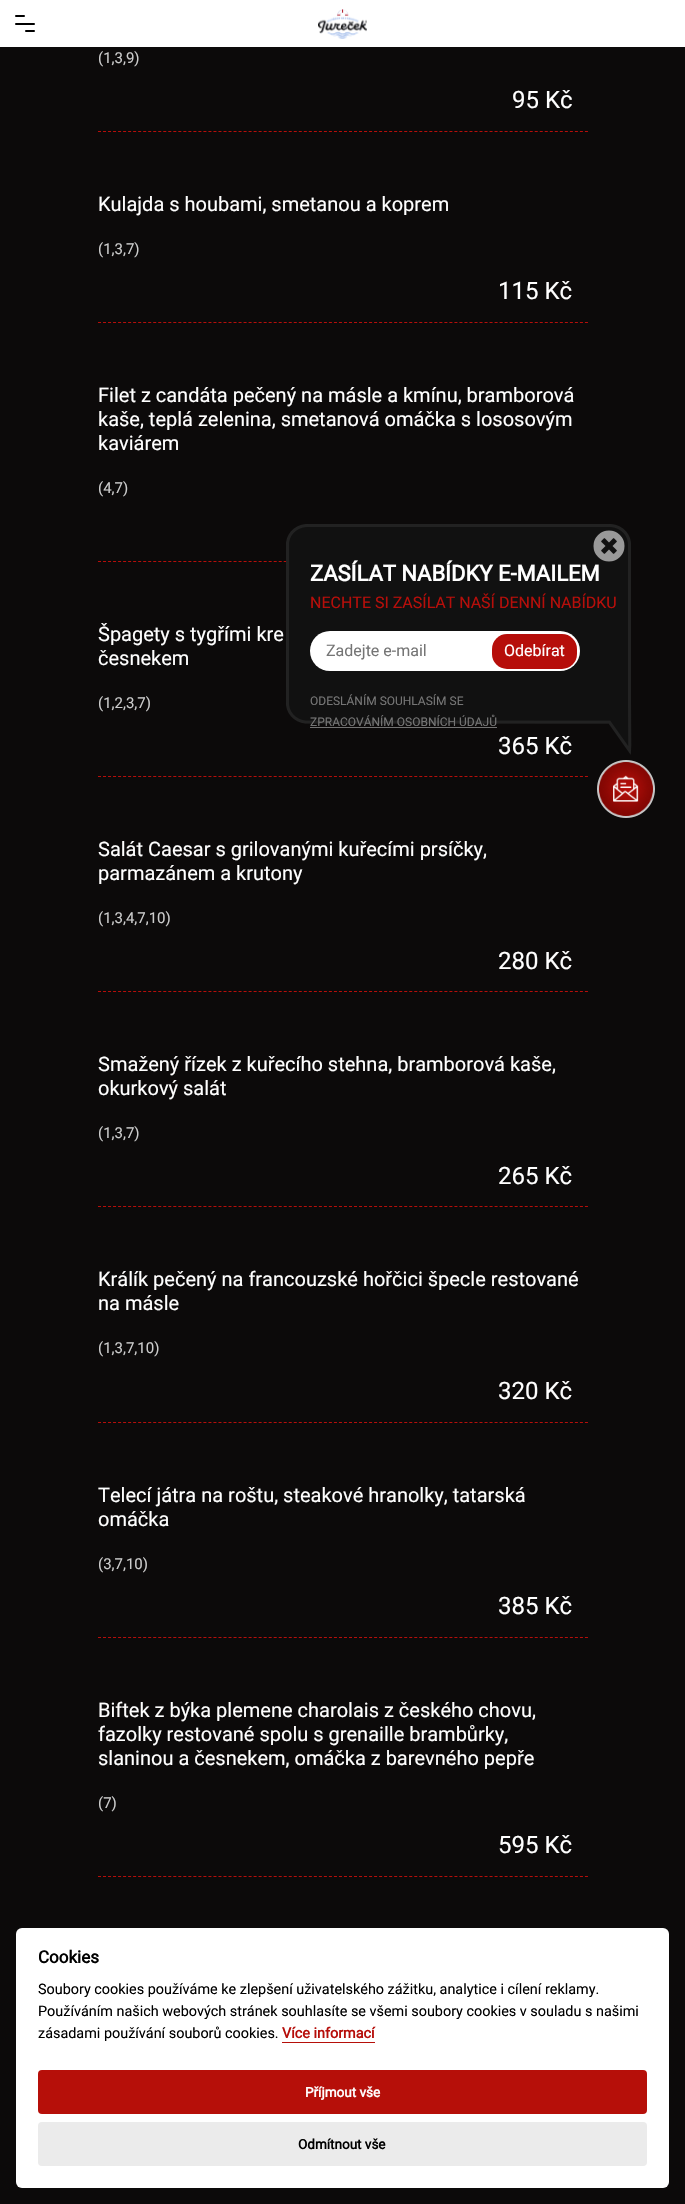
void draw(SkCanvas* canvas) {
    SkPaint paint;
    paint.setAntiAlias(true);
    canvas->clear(0xFF0C0A0A);
    paint.setColor(0xFFFFFFFF);
    canvas->drawRect(SkRect::MakeXYWH(0, 0, 685, 47), paint);
    paint.setColor(0xFF000000);
    canvas->drawRoundRect(SkRect::MakeXYWH(15, 15, 10, 2), 1, 1, paint);
    canvas->drawRoundRect(SkRect::MakeXYWH(15, 23, 20, 2), 1, 1, paint);
    canvas->drawRoundRect(SkRect::MakeXYWH(25, 30, 10, 2), 1, 1, paint);
    canvas->drawImageRect(SkImages::DeferredFromEncodedData(SkData::MakeFromFileName("img1.png")), SkRect::MakeXYWH(318, 9, 49, 30), SkSamplingOptions());
    SkFont font1(fontMgr->matchFamilyStyle("Roboto", SkFontStyle::Normal()), 15);
    font1.setSubpixel(true);
    paint.setColor(0xFFCCCCCC);
    canvas->drawString("(1,3,9)", 98, 63, font1, paint);
    SkFont font2(fontMgr->matchFamilyStyle("Roboto", SkFontStyle::Normal()), 24);
    font2.setSubpixel(true);
    paint.setColor(0xFFFFFFFF);
    canvas->drawString("95 Kč", 512, 108, font2, paint);
    paint.setStyle(SkPaint::kStroke_Style);
    paint.setStrokeWidth(1);
    paint.setColor(0xFFB60E0A);
    paint.setPathEffect(SkDashPathEffect::Make({{3, 2.02f}}, 0));
    canvas->drawPath(SkPathBuilder().moveTo(98, 131.5f).lineTo(588, 131.5f).detach(), paint);
    paint.setPathEffect(nullptr);
    SkFont font3(fontMgr->matchFamilyStyle("Roboto", SkFontStyle::Normal()), 20);
    font3.setSubpixel(true);
    paint.setStyle(SkPaint::kFill_Style);
    paint.setColor(0xFFFFFFFF);
    canvas->drawString("Kulajda s houbami, smetanou a koprem", 98, 211, font3, paint);
    paint.setColor(0xFFCCCCCC);
    canvas->drawString("(1,3,7)", 98, 254, font1, paint);
    paint.setColor(0xFFFFFFFF);
    canvas->drawString("115 Kč", 498, 299, font2, paint);
    paint.setStyle(SkPaint::kStroke_Style);
    paint.setColor(0xFFB60E0A);
    paint.setPathEffect(SkDashPathEffect::Make({{3, 2.02f}}, 0));
    canvas->drawPath(SkPathBuilder().moveTo(98, 322.5f).lineTo(588, 322.5f).detach(), paint);
    paint.setPathEffect(nullptr);
    paint.setStyle(SkPaint::kFill_Style);
    paint.setColor(0xFFFFFFFF);
    canvas->drawString("Filet z candáta pečený na másle a kmínu, bramborová", 98, 402, font3, paint);
    canvas->drawString("kaše, teplá zelenina, smetanová omáčka s lososovým", 98, 426, font3, paint);
    canvas->drawString("kaviárem", 98, 450, font3, paint);
    paint.setColor(0xFFCCCCCC);
    canvas->drawString("(4,7)", 98, 493, font1, paint);
    paint.setStyle(SkPaint::kStroke_Style);
    paint.setColor(0xFFB60E0A);
    paint.setPathEffect(SkDashPathEffect::Make({{3, 2.02f}}, 0));
    canvas->drawPath(SkPathBuilder().moveTo(98, 561.5f).lineTo(588, 561.5f).detach(), paint);
    paint.setPathEffect(nullptr);
    paint.setStyle(SkPaint::kFill_Style);
    paint.setColor(0xFFFFFFFF);
    canvas->drawString("Špagety s tygřími kre", 98, 641, font3, paint);
    canvas->drawString("česnekem", 98, 665, font3, paint);
    paint.setColor(0xFFCCCCCC);
    canvas->drawString("(1,2,3,7)", 98, 708, font1, paint);
    paint.setColor(0xFFFFFFFF);
    canvas->drawString("365 Kč", 498, 754, font2, paint);
    paint.setStyle(SkPaint::kStroke_Style);
    paint.setColor(0xFFB60E0A);
    paint.setPathEffect(SkDashPathEffect::Make({{3, 2.02f}}, 0));
    canvas->drawPath(SkPathBuilder().moveTo(98, 776.5f).lineTo(588, 776.5f).detach(), paint);
    paint.setPathEffect(nullptr);
    paint.setStyle(SkPaint::kFill_Style);
    paint.setColor(0xFFFFFFFF);
    canvas->drawString("Salát Caesar s grilovanými kuřecími prsíčky,", 98, 856, font3, paint);
    canvas->drawString("parmazánem a krutony", 98, 880, font3, paint);
    paint.setColor(0xFFCCCCCC);
    canvas->drawString("(1,3,4,7,10)", 98, 923, font1, paint);
    paint.setColor(0xFFFFFFFF);
    canvas->drawString("280 Kč", 498, 969, font2, paint);
    paint.setStyle(SkPaint::kStroke_Style);
    paint.setColor(0xFFB60E0A);
    paint.setPathEffect(SkDashPathEffect::Make({{3, 2.02f}}, 0));
    canvas->drawPath(SkPathBuilder().moveTo(98, 991.5f).lineTo(588, 991.5f).detach(), paint);
    paint.setPathEffect(nullptr);
    paint.setStyle(SkPaint::kFill_Style);
    paint.setColor(0xFFFFFFFF);
    canvas->drawString("Smažený řízek z kuřecího stehna, bramborová kaše,", 98, 1071, font3, paint);
    canvas->drawString("okurkový salát", 98, 1095, font3, paint);
    paint.setColor(0xFFCCCCCC);
    canvas->drawString("(1,3,7)", 98, 1138, font1, paint);
    paint.setColor(0xFFFFFFFF);
    canvas->drawString("265 Kč", 498, 1184, font2, paint);
    paint.setStyle(SkPaint::kStroke_Style);
    paint.setColor(0xFFB60E0A);
    paint.setPathEffect(SkDashPathEffect::Make({{3, 2.02f}}, 0));
    canvas->drawPath(SkPathBuilder().moveTo(98, 1206.5f).lineTo(588, 1206.5f).detach(), paint);
    paint.setPathEffect(nullptr);
    paint.setStyle(SkPaint::kFill_Style);
    paint.setColor(0xFFFFFFFF);
    canvas->drawString("Králík pečený na francouzské hořčici špecle restované", 98, 1286, font3, paint);
    canvas->drawString("na másle", 98, 1310, font3, paint);
    paint.setColor(0xFFCCCCCC);
    canvas->drawString("(1,3,7,10)", 98, 1353, font1, paint);
    paint.setColor(0xFFFFFFFF);
    canvas->drawString("320 Kč", 498, 1399, font2, paint);
    paint.setStyle(SkPaint::kStroke_Style);
    paint.setColor(0xFFB60E0A);
    paint.setPathEffect(SkDashPathEffect::Make({{3, 2.02f}}, 0));
    canvas->drawPath(SkPathBuilder().moveTo(98, 1422.5f).lineTo(588, 1422.5f).detach(), paint);
    paint.setPathEffect(nullptr);
    paint.setStyle(SkPaint::kFill_Style);
    paint.setColor(0xFFFFFFFF);
    canvas->drawString("Telecí játra na roštu, steakové hranolky, tatarská", 98, 1502, font3, paint);
    canvas->drawString("omáčka", 98, 1526, font3, paint);
    paint.setColor(0xFFCCCCCC);
    canvas->drawString("(3,7,10)", 98, 1569, font1, paint);
    paint.setColor(0xFFFFFFFF);
    canvas->drawString("385 Kč", 498, 1614, font2, paint);
    paint.setStyle(SkPaint::kStroke_Style);
    paint.setColor(0xFFB60E0A);
    paint.setPathEffect(SkDashPathEffect::Make({{3, 2.02f}}, 0));
    canvas->drawPath(SkPathBuilder().moveTo(98, 1637.5f).lineTo(588, 1637.5f).detach(), paint);
    paint.setPathEffect(nullptr);
    paint.setStyle(SkPaint::kFill_Style);
    paint.setColor(0xFFFFFFFF);
    canvas->drawString("Biftek z býka plemene charolais z českého chovu,", 98, 1717, font3, paint);
    canvas->drawString("fazolky restované spolu s grenaille brambůrky,", 98, 1741, font3, paint);
    canvas->drawString("slaninou a česnekem, omáčka z barevného pepře", 98, 1765, font3, paint);
    paint.setColor(0xFFCCCCCC);
    canvas->drawString("(7)", 98, 1808, font1, paint);
    paint.setColor(0xFFFFFFFF);
    canvas->drawString("595 Kč", 498, 1853, font2, paint);
    paint.setStyle(SkPaint::kStroke_Style);
    paint.setColor(0xFFB60E0A);
    paint.setPathEffect(SkDashPathEffect::Make({{3, 2.02f}}, 0));
    canvas->drawPath(SkPathBuilder().moveTo(98, 1876.5f).lineTo(588, 1876.5f).detach(), paint);
    paint.setPathEffect(nullptr);
    canvas->drawImageRect(SkImages::DeferredFromEncodedData(SkData::MakeFromFileName("img2.png")), SkRect::MakeXYWH(286, 524, 346, 231), SkSamplingOptions());
    SkFont font4(fontMgr->matchFamilyStyle("Roboto", SkFontStyle::Bold()), 22);
    font4.setSubpixel(true);
    paint.setStyle(SkPaint::kFill_Style);
    paint.setColor(0xFFFFFFFF);
    canvas->drawString("ZASÍLAT NABÍDKY E-MAILEM", 310, 581, font4, paint);
    canvas->drawImageRect(SkImages::DeferredFromEncodedData(SkData::MakeFromFileName("img3.png")), SkRect::MakeXYWH(593, 530, 32, 32), SkSamplingOptions());
    SkFont font5(fontMgr->matchFamilyStyle("Roboto", SkFontStyle::Normal()), 16);
    font5.setSubpixel(true);
    paint.setColor(0xFFB60E0A);
    canvas->drawString("NECHTE SI ZASÍLAT NAŠÍ DENNÍ NABÍDKU", 310, 608, font5, paint);
    paint.setColor(0xFFFFFFFF);
    canvas->drawRoundRect(SkRect::MakeXYWH(310, 631, 270, 40), 20, 20, paint);
    paint.setColor(0xFF757575);
    canvas->drawString("Zadejte e-mail", 326, 656, font5, paint);
    paint.setColor(0xFFB60E0A);
    canvas->drawRoundRect(SkRect::MakeXYWH(492, 634, 85, 35), 15, 15, paint);
    paint.setColor(0xFFFFFFFF);
    canvas->drawString("Odebírat", 504, 656, font5, paint);
    SkFont font6(fontMgr->matchFamilyStyle("Roboto", SkFontStyle::Normal()), 12);
    font6.setSubpixel(true);
    paint.setColor(0xFF757575);
    canvas->drawString("ODESLÁNÍM SOUHLASÍM SE", 310, 705, font6, paint);
    canvas->drawString("ZPRACOVÁNÍM OSOBNÍCH ÚDAJŮ", 310, 726, font6, paint);
    paint.setColor(0xFF737373);
    canvas->drawRect(SkRect::MakeXYWH(310, 727, 187, 1), paint);
    canvas->drawImageRect(SkImages::DeferredFromEncodedData(SkData::MakeFromFileName("img4.png")), SkRect::MakeXYWH(597, 760, 58, 58), SkSamplingOptions());
    paint.setColor(0xFFFFFFFF);
    canvas->drawRoundRect(SkRect::MakeXYWH(16, 1928, 653, 260), 6, 6, paint);
    SkFont font7(fontMgr->matchFamilyStyle("Roboto", SkFontStyle::Bold()), 17);
    font7.setSubpixel(true);
    paint.setColor(0xFF000000);
    canvas->drawString("Cookies", 38, 1963, font7, paint);
    SkFont font8(fontMgr->matchFamilyStyle("Roboto", SkFontStyle::Normal()), 14.4f);
    font8.setSubpixel(true);
    canvas->drawString("Soubory cookies používáme ke zlepšení uživatelského zážitku, analytice i cílení reklamy.", 38, 1994, font8, paint);
    canvas->drawString("Používáním našich webových stránek souhlasíte se všemi soubory cookies v souladu s našimi", 38, 2016, font8, paint);
    canvas->drawString("zásadami používání souborů cookies.", 38, 2038, font8, paint);
    SkFont font9(fontMgr->matchFamilyStyle("Roboto", SkFontStyle::Bold()), 14.4f);
    font9.setSubpixel(true);
    paint.setColor(0xFFB60E0A);
    canvas->drawString("Více informací", 282, 2038, font9, paint);
    paint.setColor(0xFFB60F09);
    canvas->drawRect(SkRect::MakeXYWH(282, 2042, 93, 1), paint);
    canvas->drawRoundRect(SkRect::MakeXYWH(38, 2070, 609, 44), 4, 4, paint);
    SkFont font10(fontMgr->matchFamilyStyle("Roboto", SkFontStyle::Bold()), 13.5f);
    font10.setSubpixel(true);
    paint.setColor(0xFFFFFFFF);
    canvas->drawString("Příjmout vše", 305, 2097, font10, paint);
    paint.setColor(0xFFEBEBEB);
    canvas->drawRoundRect(SkRect::MakeXYWH(38, 2122, 609, 44), 4, 4, paint);
    paint.setColor(0xFF000000);
    canvas->drawString("Odmítnout vše", 298, 2149, font10, paint);
}
